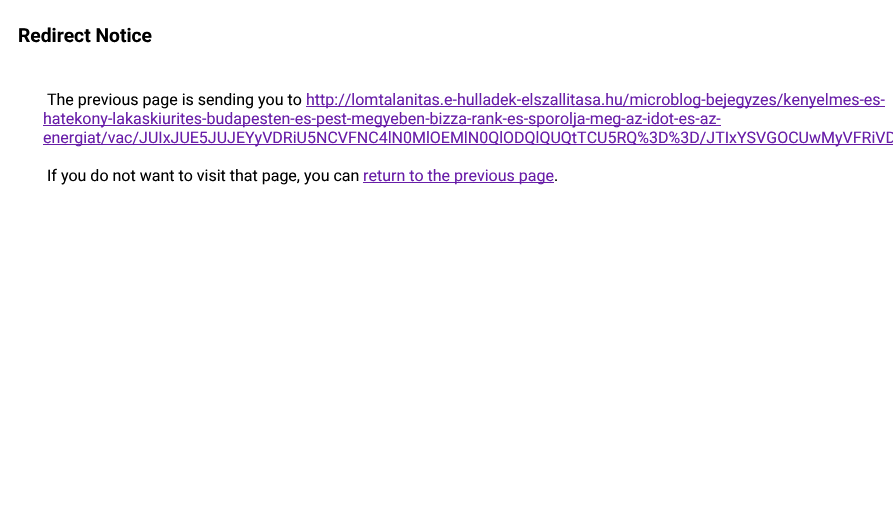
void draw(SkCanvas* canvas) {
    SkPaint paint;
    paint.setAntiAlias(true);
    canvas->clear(0xFFFFFFFF);
    SkFont font1(fontMgr->matchFamilyStyle("Roboto", SkFontStyle::Bold()), 19.25f);
    font1.setSubpixel(true);
    paint.setColor(0xFF000000);
    canvas->drawString("Redirect Notice", 18, 42, font1, paint);
    SkFont font2(fontMgr->matchFamilyStyle("Roboto", SkFontStyle::Normal()), 16);
    font2.setSubpixel(true);
    canvas->drawString("The previous page is sending you to", 47, 105, font2, paint);
    paint.setColor(0xFF681DA8);
    canvas->drawRect(SkRect::MakeXYWH(306, 106, 579, 1), paint);
    canvas->drawString("http://lomtalanitas.e-hulladek-elszallitasa.hu/microblog-bejegyzes/kenyelmes-es-", 306, 105, font2, paint);
    canvas->drawRect(SkRect::MakeXYWH(43, 125, 678, 1), paint);
    canvas->drawString("hatekony-lakaskiurites-budapesten-es-pest-megyeben-bizza-rank-es-sporolja-meg-az-idot-es-az-", 43, 124, font2, paint);
    canvas->drawRect(SkRect::MakeXYWH(43, 144, 850, 1), paint);
    canvas->drawString("energiat/vac/JUIxJUE5JUJEYyVDRiU5NCVFNC4lN0MlOEMlN0QlODQlQUQtTCU5RQ%3D%3D/JTIxYSVGOCUwMyVFRiVD", 43, 143, font2, paint);
    paint.setColor(0xFF000000);
    canvas->drawString("If you do not want to visit that page, you can", 47, 181, font2, paint);
    paint.setColor(0xFF681DA8);
    canvas->drawRect(SkRect::MakeXYWH(363, 182, 191, 1), paint);
    canvas->drawString("return to the previous page", 363, 181, font2, paint);
    paint.setColor(0xFF000000);
    canvas->drawString(".", 554, 181, font2, paint);
}
